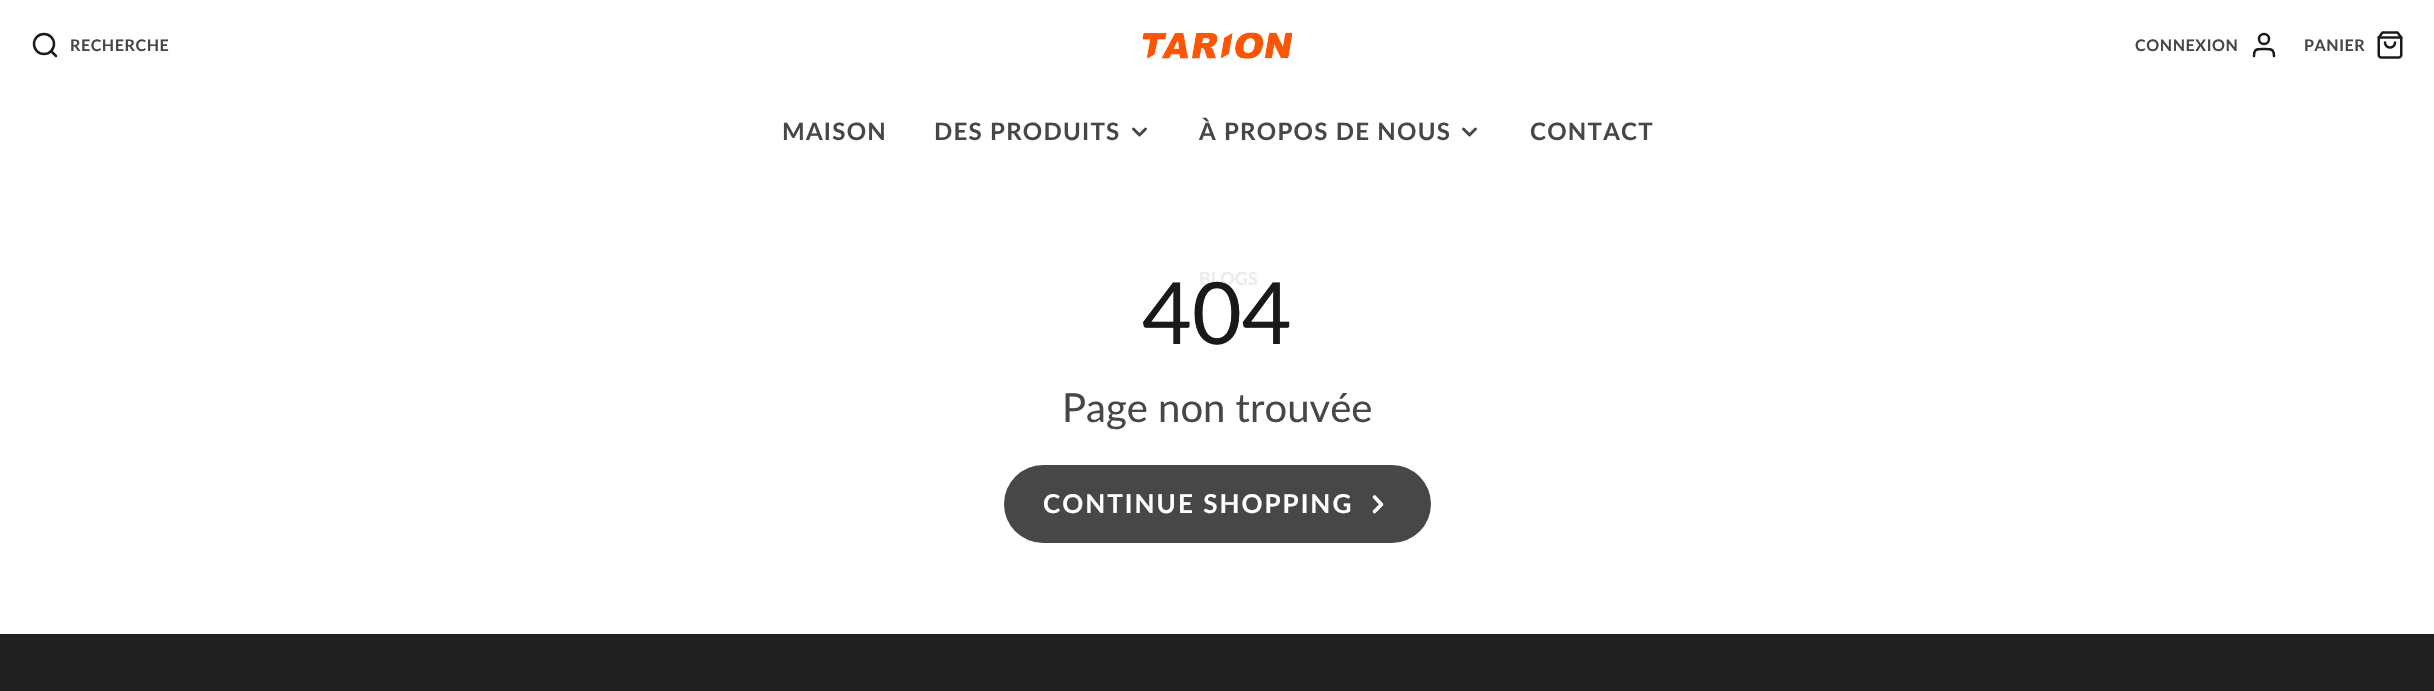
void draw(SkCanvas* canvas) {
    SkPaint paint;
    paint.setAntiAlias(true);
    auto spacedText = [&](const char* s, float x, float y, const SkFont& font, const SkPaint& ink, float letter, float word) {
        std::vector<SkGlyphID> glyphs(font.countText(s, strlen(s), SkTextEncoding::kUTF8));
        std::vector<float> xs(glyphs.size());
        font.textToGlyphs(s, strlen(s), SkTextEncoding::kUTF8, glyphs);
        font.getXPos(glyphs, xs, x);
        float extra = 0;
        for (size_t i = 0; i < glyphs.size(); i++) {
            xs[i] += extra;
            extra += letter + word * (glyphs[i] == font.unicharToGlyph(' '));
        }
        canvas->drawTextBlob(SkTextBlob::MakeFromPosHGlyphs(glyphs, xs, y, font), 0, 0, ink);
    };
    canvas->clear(0xFFFFFFFF);
    paint.setStyle(SkPaint::kStroke_Style);
    paint.setStrokeWidth(2.5f);
    paint.setColor(0xFF1A1B18);
    canvas->drawCircle(44, 44, 10, paint);
    paint.setStrokeCap(SkPaint::kRound_Cap);
    paint.setStrokeJoin(SkPaint::kRound_Join);
    canvas->drawPath(SkPathBuilder().moveTo(56, 56).lineTo(51, 51).detach(), paint);
    SkFont font1(fontMgr->matchFamilyStyle("Lato", SkFontStyle::Bold()), 16);
    font1.setSubpixel(true);
    paint.setStyle(SkPaint::kFill_Style);
    paint.setColor(0xFF474747);
    spacedText("RECHERCHE", 70, 51, font1, paint, 0.6f, 0);
    canvas->drawImageRect(SkImages::DeferredFromEncodedData(SkData::MakeFromFileName("img1.png")), SkRect::MakeXYWH(1142, 32, 151, 27), SkSamplingOptions());
    spacedText("CONNEXION", 2135, 51, font1, paint, 0.6f, 0);
    paint.setStyle(SkPaint::kStroke_Style);
    paint.setStrokeCap(SkPaint::kButt_Cap);
    paint.setStrokeJoin(SkPaint::kMiter_Join);
    paint.setColor(0xFF1A1B18);
    canvas->drawCircle(2264, 39, 5, paint);
    paint.setStrokeCap(SkPaint::kRound_Cap);
    paint.setStrokeJoin(SkPaint::kRound_Join);
    canvas->drawPath(SkPathBuilder().moveTo(2274, 56).cubicTo(2274, 48.5f, 2270.5f, 49, 2264, 49).cubicTo(2257, 49, 2254, 48.5f, 2254, 56).detach(), paint);
    paint.setStyle(SkPaint::kFill_Style);
    paint.setColor(0xFF474747);
    spacedText("PANIER", 2304, 51, font1, paint, 0.6f, 0);
    canvas->drawImageRect(SkImages::DeferredFromEncodedData(SkData::MakeFromFileName("img2.png")), SkRect::MakeXYWH(2377, 31, 26, 28), SkSamplingOptions());
    SkFont font2(fontMgr->matchFamilyStyle("Lato", SkFontStyle::Bold()), 24);
    font2.setSubpixel(true);
    spacedText("MAISON", 782, 140, font2, paint, 1.25f, 0);
    spacedText("DES PRODUITS", 934, 140, font2, paint, 1.25f, 0);
    paint.setStyle(SkPaint::kStroke_Style);
    paint.setStrokeWidth(3);
    paint.setColor(0xFF484946);
    canvas->drawPath(SkPathBuilder().moveTo(1133.5f, 129).lineTo(1139.5f, 135).lineTo(1145.5f, 129).detach(), paint);
    paint.setStyle(SkPaint::kFill_Style);
    paint.setColor(0xFF474747);
    spacedText("À PROPOS DE NOUS", 1199, 140, font2, paint, 1.25f, 0);
    paint.setStyle(SkPaint::kStroke_Style);
    paint.setColor(0xFF484946);
    canvas->drawPath(SkPathBuilder().moveTo(1463.5f, 129).lineTo(1469.5f, 135).lineTo(1475.5f, 129).detach(), paint);
    SkFont font3(fontMgr->matchFamilyStyle("Lato", SkFontStyle::Bold()), 18);
    font3.setSubpixel(true);
    paint.setStyle(SkPaint::kFill_Style);
    paint.setColor(0xFFECECEC);
    canvas->drawString("BLOGS", 1199, 285, font3, paint);
    paint.setColor(0xFF474747);
    spacedText("CONTACT", 1530, 140, font2, paint, 1.25f, 0);
    SkFont font4(fontMgr->matchFamilyStyle("Lato", SkFontStyle::Normal()), 86);
    font4.setSubpixel(true);
    paint.setColor(0xFF191919);
    canvas->drawString("404", 1142, 344, font4, paint);
    SkFont font5(fontMgr->matchFamilyStyle("Lato", SkFontStyle::Normal()), 40);
    font5.setSubpixel(true);
    paint.setColor(0xFF474747);
    canvas->drawString("Page non trouvée", 1062, 422, font5, paint);
    canvas->drawRoundRect(SkRect::MakeXYWH(1004, 465, 427, 78), 39, 39, paint);
    SkFont font6(fontMgr->matchFamilyStyle("Lato", SkFontStyle::Bold()), 26);
    font6.setSubpixel(true);
    paint.setColor(0xFFFFFFFF);
    spacedText("CONTINUE SHOPPING", 1043, 513, font6, paint, 2, 0);
    paint.setStyle(SkPaint::kStroke_Style);
    paint.setStrokeWidth(3.6f);
    canvas->drawPath(SkPathBuilder().moveTo(1374.5f, 511.5f).lineTo(1381.5f, 504.5f).lineTo(1374.5f, 497).detach(), paint);
    paint.setStyle(SkPaint::kFill_Style);
    paint.setColor(0xFF212121);
    canvas->drawRect(SkRect::MakeXYWH(0, 634, 2434, 57), paint);
}
